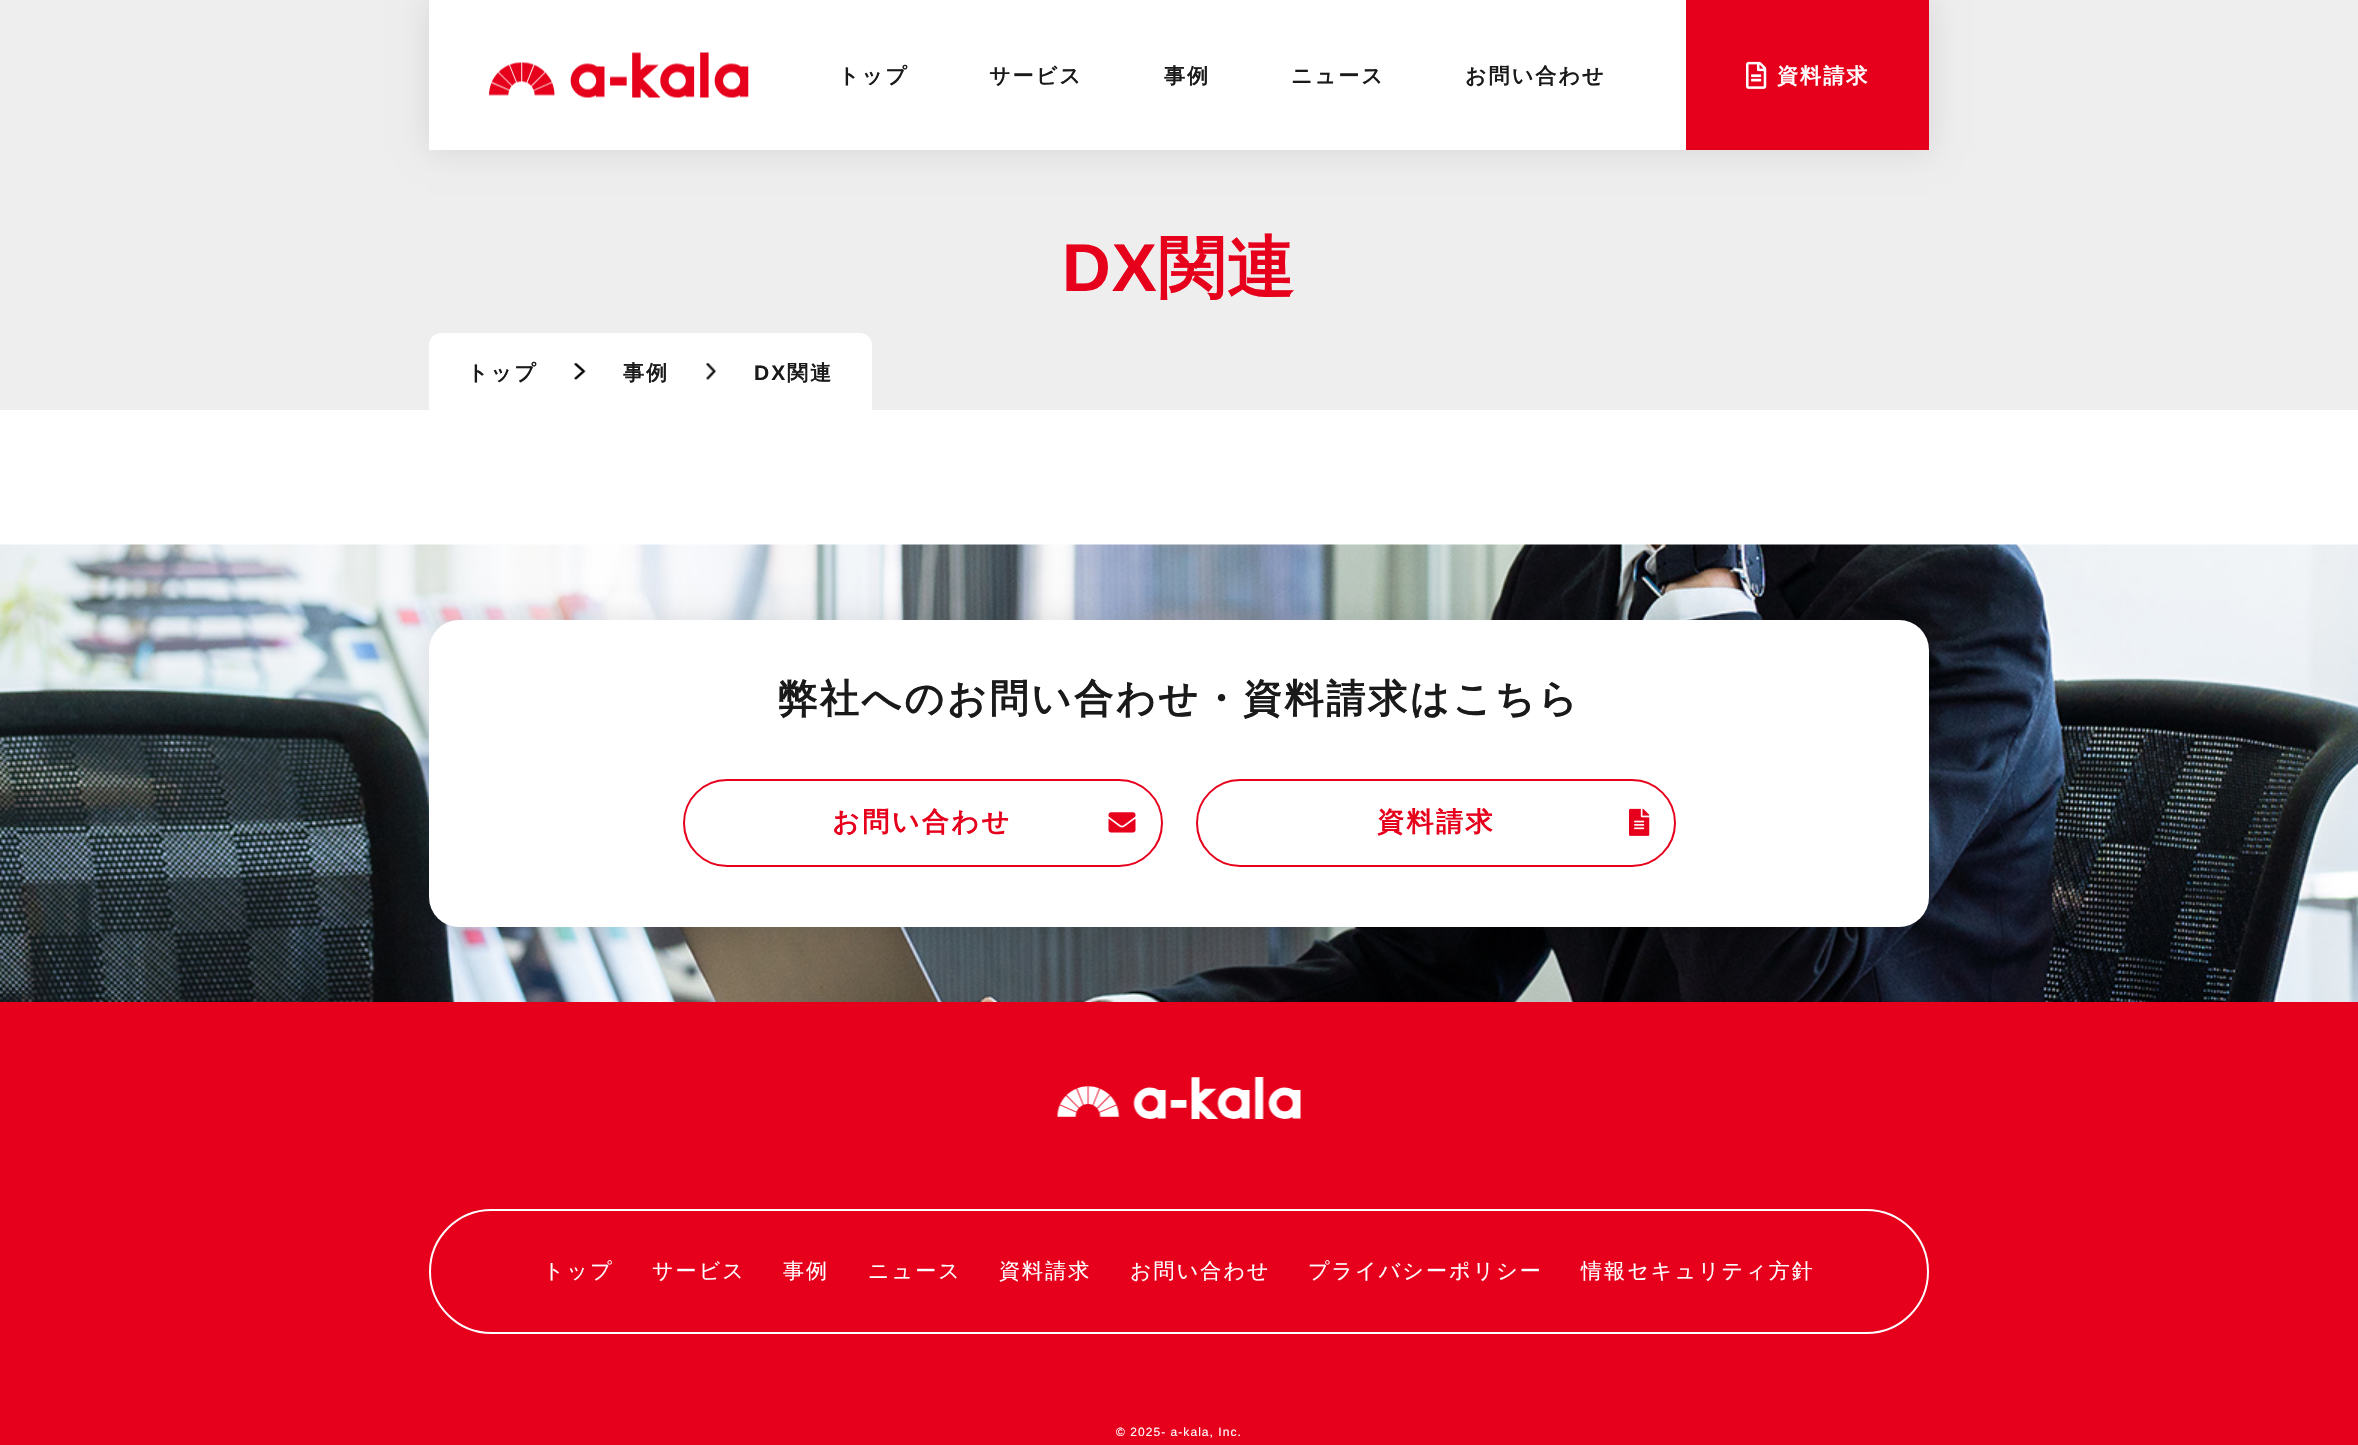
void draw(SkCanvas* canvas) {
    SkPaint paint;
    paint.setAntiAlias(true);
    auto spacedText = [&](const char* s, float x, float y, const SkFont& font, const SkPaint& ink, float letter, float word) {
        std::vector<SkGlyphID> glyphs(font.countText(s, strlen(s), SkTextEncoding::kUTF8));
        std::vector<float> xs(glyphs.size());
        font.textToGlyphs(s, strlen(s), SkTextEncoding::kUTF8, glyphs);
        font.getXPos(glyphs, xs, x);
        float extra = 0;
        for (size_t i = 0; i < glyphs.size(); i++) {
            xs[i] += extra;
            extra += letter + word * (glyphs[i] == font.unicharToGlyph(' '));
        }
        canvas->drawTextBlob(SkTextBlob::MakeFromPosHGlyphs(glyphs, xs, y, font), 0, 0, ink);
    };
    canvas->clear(0xFFFFFFFF);
    paint.setColor(0xFFEEEEEE);
    canvas->drawRect(SkRect::MakeXYWH(0, 0, 2358, 410), paint);
    paint.setColor(0x1C000000);
    paint.setMaskFilter(SkMaskFilter::MakeBlur(kNormal_SkBlurStyle, 15));
    canvas->drawRect(SkRect::MakeXYWH(429, 0, 1500, 150), paint);
    paint.setMaskFilter(nullptr);
    paint.setColor(0xFFFFFFFF);
    canvas->drawRect(SkRect::MakeXYWH(429, 0, 1257, 150), paint);
    canvas->drawImageRect(SkImages::DeferredFromEncodedData(SkData::MakeFromFileName("img1.png")), SkRect::MakeXYWH(489, 52, 260, 46), SkSamplingOptions());
    SkFont font1(fontMgr->matchFamilyStyle("WenQuanYi Zen Hei", SkFontStyle::Bold()), 21);
    font1.setSubpixel(true);
    paint.setColor(0xFF1A1A1A);
    spacedText("トップ", 838, 83, font1, paint, 2.1f, 0);
    spacedText("サービス", 989, 83, font1, paint, 2.1f, 0);
    spacedText("事例", 1164, 83, font1, paint, 2.1f, 0);
    spacedText("ニュース", 1291, 83, font1, paint, 2.1f, 0);
    spacedText("お問い合わせ", 1465, 83, font1, paint, 2.1f, 0);
    paint.setColor(0xFFE6001C);
    canvas->drawRect(SkRect::MakeXYWH(1686, 0, 243, 150), paint);
    canvas->drawImageRect(SkImages::DeferredFromEncodedData(SkData::MakeFromFileName("img2.png")), SkRect::MakeXYWH(1746, 61, 21, 28), SkSamplingOptions());
    paint.setColor(0xFFFFFFFF);
    spacedText("資料請求", 1777, 83, font1, paint, 2.1f, 0);
    SkFont font2(fontMgr->matchFamilyStyle("Liberation Sans", SkFontStyle::Bold()), 67.5f);
    font2.setSubpixel(true);
    paint.setColor(0xFFE6001C);
    spacedText("DX", 1062, 291, font2, paint, 1, 0);
    SkFont font3(fontMgr->matchFamilyStyle("WenQuanYi Zen Hei", SkFontStyle::Bold()), 67.5f);
    font3.setSubpixel(true);
    spacedText("関連", 1158, 291, font3, paint, 1, 0);
    paint.setColor(0xFFFFFFFF);
    canvas->drawPath(SkPathBuilder().moveTo(441, 333).lineTo(860, 333).cubicTo(866.5f, 333, 872, 338.5f, 872, 345).lineTo(872, 411).lineTo(429, 411).lineTo(429, 345).cubicTo(429, 338.5f, 434.5f, 333, 441, 333).close().detach(), paint);
    paint.setColor(0xFF1A1A1A);
    spacedText("トップ", 467, 380, font1, paint, 2.1f, 0);
    canvas->drawImageRect(SkImages::DeferredFromEncodedData(SkData::MakeFromFileName("img3.png")), SkRect::MakeXYWH(574, 363, 12, 17), SkSamplingOptions());
    spacedText("事例", 623, 380, font1, paint, 2.1f, 0);
    canvas->drawImageRect(SkImages::DeferredFromEncodedData(SkData::MakeFromFileName("img4.png")), SkRect::MakeXYWH(706, 363, 10, 17), SkSamplingOptions());
    SkFont font4(fontMgr->matchFamilyStyle("Liberation Sans", SkFontStyle::Bold()), 21);
    font4.setSubpixel(true);
    spacedText("DX", 754, 380, font4, paint, 2.1f, 0);
    spacedText("関連", 787, 380, font1, paint, 2.1f, 0);
    canvas->drawImageRect(SkImages::DeferredFromEncodedData(SkData::MakeFromFileName("img5.png")), SkRect::MakeXYWH(0, 544, 2358, 458), SkSamplingOptions());
    paint.setColor(0x1C000000);
    paint.setMaskFilter(SkMaskFilter::MakeBlur(kNormal_SkBlurStyle, 15));
    canvas->drawRoundRect(SkRect::MakeXYWH(429, 620, 1500, 307), 30, 30, paint);
    paint.setMaskFilter(nullptr);
    paint.setColor(0xFFFFFFFF);
    canvas->drawRoundRect(SkRect::MakeXYWH(429, 620, 1500, 307), 30, 30, paint);
    SkFont font5(fontMgr->matchFamilyStyle("WenQuanYi Zen Hei", SkFontStyle::Bold()), 39);
    font5.setSubpixel(true);
    paint.setColor(0xFF1A1A1A);
    spacedText("弊社へのお問い合わせ・資料請求はこちら", 778, 712, font5, paint, 2.75f, 0);
    paint.setStyle(SkPaint::kStroke_Style);
    paint.setStrokeWidth(2);
    paint.setColor(0xFFE6001C);
    canvas->drawRoundRect(SkRect::MakeXYWH(684, 780, 478, 86), 43, 43, paint);
    SkFont font6(fontMgr->matchFamilyStyle("WenQuanYi Zen Hei", SkFontStyle::Bold()), 27);
    font6.setSubpixel(true);
    paint.setStyle(SkPaint::kFill_Style);
    spacedText("お問い合わせ", 832, 831, font6, paint, 2.5f, 0);
    canvas->drawImageRect(SkImages::DeferredFromEncodedData(SkData::MakeFromFileName("img6.png")), SkRect::MakeXYWH(1108, 812, 28, 21), SkSamplingOptions());
    paint.setStyle(SkPaint::kStroke_Style);
    canvas->drawRoundRect(SkRect::MakeXYWH(1197, 780, 478, 86), 43, 43, paint);
    paint.setStyle(SkPaint::kFill_Style);
    spacedText("資料請求", 1377, 831, font6, paint, 2.5f, 0);
    canvas->drawImageRect(SkImages::DeferredFromEncodedData(SkData::MakeFromFileName("img7.png")), SkRect::MakeXYWH(1629, 808, 21, 28), SkSamplingOptions());
    canvas->drawRect(SkRect::MakeXYWH(0, 1002, 2358, 443), paint);
    canvas->drawImageRect(SkImages::DeferredFromEncodedData(SkData::MakeFromFileName("img8.png")), SkRect::MakeXYWH(1057, 1077, 244, 42), SkSamplingOptions());
    paint.setStyle(SkPaint::kStroke_Style);
    paint.setColor(0xFFFFFFFF);
    canvas->drawRoundRect(SkRect::MakeXYWH(430, 1210, 1498, 123), 61.5f, 61.5f, paint);
    SkFont font7(fontMgr->matchFamilyStyle("WenQuanYi Zen Hei", SkFontStyle(500, SkFontStyle::kNormal_Width, SkFontStyle::kUpright_Slant)), 21);
    font7.setSubpixel(true);
    paint.setStyle(SkPaint::kFill_Style);
    spacedText("トップ", 543, 1278, font7, paint, 2.1f, 0);
    spacedText("サービス", 652, 1278, font7, paint, 2.1f, 0);
    spacedText("事例", 783, 1278, font7, paint, 2.1f, 0);
    spacedText("ニュース", 868, 1278, font7, paint, 2.1f, 0);
    spacedText("資料請求", 999, 1278, font7, paint, 2.1f, 0);
    spacedText("お問い合わせ", 1130, 1278, font7, paint, 2.1f, 0);
    spacedText("プライバシーポリシー", 1308, 1278, font7, paint, 2.1f, 0);
    spacedText("情報セキュリティ方針", 1581, 1278, font7, paint, 2.1f, 0);
    SkFont font8(fontMgr->matchFamilyStyle("Liberation Sans", SkFontStyle::Normal()), 12);
    font8.setSubpixel(true);
    spacedText("© 2025- a-kala, Inc.", 1116, 1436, font8, paint, 1.05f, 0);
}
